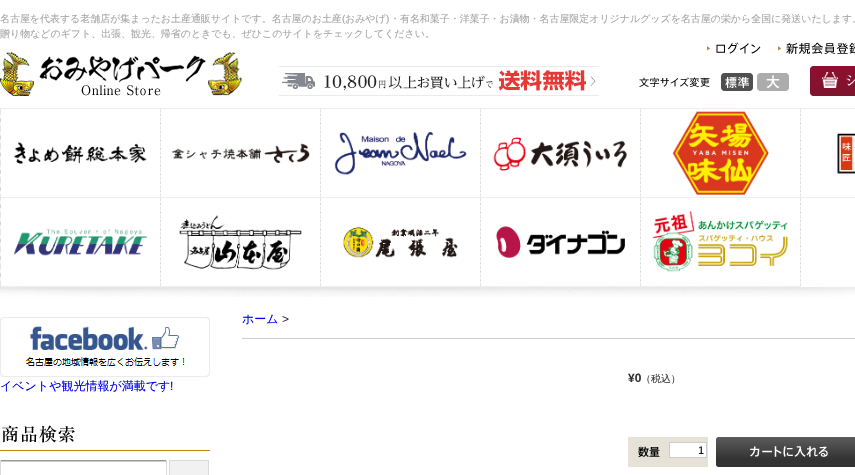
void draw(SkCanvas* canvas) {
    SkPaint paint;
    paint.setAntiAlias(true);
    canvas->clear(0xFFFFFFFF);
    canvas->drawImageRect(SkImages::DeferredFromEncodedData(SkData::MakeFromFileName("img1.png")), SkRect::MakeXYWH(0, 287, 855, 10), SkSamplingOptions());
    SkFont font1(fontMgr->matchFamilyStyle("WenQuanYi Zen Hei", SkFontStyle(500, SkFontStyle::kNormal_Width, SkFontStyle::kUpright_Slant)), 9.95f);
    font1.setSubpixel(true);
    paint.setColor(0xFFA5A5A5);
    canvas->drawString("名古屋を代表する老舗店が集まったお土産通販サイトです。名古屋のお土産", 0, 22, font1, paint);
    SkFont font2(fontMgr->matchFamilyStyle("Liberation Sans", SkFontStyle::Normal()), 9.95f);
    font2.setSubpixel(true);
    canvas->drawString("(", 342, 22, font2, paint);
    canvas->drawString("おみやげ", 345, 22, font1, paint);
    canvas->drawString(")", 386, 22, font2, paint);
    canvas->drawString("・有名和菓子・洋菓子・お漬物・名古屋限定オリジナルグッズを名古屋の栄から全国に発送いたします。", 390, 22, font1, paint);
    canvas->drawString("贈り物などのギフト、出張、観光、帰省のときでも、ぜひこのサイトをチェックしてください。", 0, 37, font1, paint);
    canvas->drawImageRect(SkImages::DeferredFromEncodedData(SkData::MakeFromFileName("img2.png")), SkRect::MakeXYWH(0, 52, 242, 44), SkSamplingOptions());
    canvas->drawImageRect(SkImages::DeferredFromEncodedData(SkData::MakeFromFileName("img3.png")), SkRect::MakeXYWH(707, 42, 54, 12), SkSamplingOptions());
    canvas->drawImageRect(SkImages::DeferredFromEncodedData(SkData::MakeFromFileName("img4.png")), SkRect::MakeXYWH(778, 42, 77, 12), SkSamplingOptions());
    canvas->drawImageRect(SkImages::DeferredFromEncodedData(SkData::MakeFromFileName("img5.png")), SkRect::MakeXYWH(279, 66, 320, 30), SkSamplingOptions());
    canvas->drawImageRect(SkImages::DeferredFromEncodedData(SkData::MakeFromFileName("img6.png")), SkRect::MakeXYWH(639, 77, 71, 10), SkSamplingOptions());
    canvas->drawImageRect(SkImages::DeferredFromEncodedData(SkData::MakeFromFileName("img7.png")), SkRect::MakeXYWH(721, 73, 32, 18), SkSamplingOptions());
    canvas->drawImageRect(SkImages::DeferredFromEncodedData(SkData::MakeFromFileName("img8.png")), SkRect::MakeXYWH(757, 73, 32, 18), SkSamplingOptions());
    canvas->drawImageRect(SkImages::DeferredFromEncodedData(SkData::MakeFromFileName("img9.png")), SkRect::MakeXYWH(810, 66, 45, 30), SkSamplingOptions());
    canvas->drawImageRect(SkImages::DeferredFromEncodedData(SkData::MakeFromFileName("img10.png")), SkRect::MakeXYWH(0, 108, 1, 179), SkSamplingOptions());
    canvas->drawImageRect(SkImages::DeferredFromEncodedData(SkData::MakeFromFileName("img11.png")), SkRect::MakeXYWH(160, 109, 1, 88), SkSamplingOptions());
    paint.setColor(0xFFEEEEEE);
    canvas->drawRect(SkRect::MakeXYWH(1, 108, 854, 1), paint);
    canvas->drawRect(SkRect::MakeXYWH(1, 197, 854, 1), paint);
    canvas->drawImageRect(SkImages::DeferredFromEncodedData(SkData::MakeFromFileName("img12.png")), SkRect::MakeXYWH(14, 142, 133, 22), SkSamplingOptions());
    canvas->drawImageRect(SkImages::DeferredFromEncodedData(SkData::MakeFromFileName("img11.png")), SkRect::MakeXYWH(320, 109, 1, 88), SkSamplingOptions());
    canvas->drawImageRect(SkImages::DeferredFromEncodedData(SkData::MakeFromFileName("img13.png")), SkRect::MakeXYWH(171, 143, 139, 20), SkSamplingOptions());
    canvas->drawImageRect(SkImages::DeferredFromEncodedData(SkData::MakeFromFileName("img11.png")), SkRect::MakeXYWH(480, 109, 1, 88), SkSamplingOptions());
    canvas->drawImageRect(SkImages::DeferredFromEncodedData(SkData::MakeFromFileName("img14.png")), SkRect::MakeXYWH(334, 132, 133, 43), SkSamplingOptions());
    canvas->drawImageRect(SkImages::DeferredFromEncodedData(SkData::MakeFromFileName("img11.png")), SkRect::MakeXYWH(640, 109, 1, 88), SkSamplingOptions());
    canvas->drawImageRect(SkImages::DeferredFromEncodedData(SkData::MakeFromFileName("img15.png")), SkRect::MakeXYWH(493, 137, 134, 34), SkSamplingOptions());
    canvas->drawImageRect(SkImages::DeferredFromEncodedData(SkData::MakeFromFileName("img11.png")), SkRect::MakeXYWH(800, 109, 1, 88), SkSamplingOptions());
    canvas->drawImageRect(SkImages::DeferredFromEncodedData(SkData::MakeFromFileName("img16.png")), SkRect::MakeXYWH(672, 111, 97, 84), SkSamplingOptions());
    canvas->drawImageRect(SkImages::DeferredFromEncodedData(SkData::MakeFromFileName("img17.png")), SkRect::MakeXYWH(837, 133, 18, 41), SkSamplingOptions());
    canvas->drawImageRect(SkImages::DeferredFromEncodedData(SkData::MakeFromFileName("img11.png")), SkRect::MakeXYWH(160, 198, 1, 88), SkSamplingOptions());
    canvas->drawRect(SkRect::MakeXYWH(1, 286, 800, 1), paint);
    canvas->drawImageRect(SkImages::DeferredFromEncodedData(SkData::MakeFromFileName("img18.png")), SkRect::MakeXYWH(13, 229, 134, 27), SkSamplingOptions());
    canvas->drawImageRect(SkImages::DeferredFromEncodedData(SkData::MakeFromFileName("img11.png")), SkRect::MakeXYWH(320, 198, 1, 88), SkSamplingOptions());
    canvas->drawImageRect(SkImages::DeferredFromEncodedData(SkData::MakeFromFileName("img19.png")), SkRect::MakeXYWH(179, 215, 123, 55), SkSamplingOptions());
    canvas->drawImageRect(SkImages::DeferredFromEncodedData(SkData::MakeFromFileName("img11.png")), SkRect::MakeXYWH(480, 198, 1, 88), SkSamplingOptions());
    canvas->drawImageRect(SkImages::DeferredFromEncodedData(SkData::MakeFromFileName("img20.png")), SkRect::MakeXYWH(343, 227, 115, 31), SkSamplingOptions());
    canvas->drawImageRect(SkImages::DeferredFromEncodedData(SkData::MakeFromFileName("img11.png")), SkRect::MakeXYWH(640, 198, 1, 88), SkSamplingOptions());
    canvas->drawImageRect(SkImages::DeferredFromEncodedData(SkData::MakeFromFileName("img21.png")), SkRect::MakeXYWH(496, 226, 129, 32), SkSamplingOptions());
    canvas->drawImageRect(SkImages::DeferredFromEncodedData(SkData::MakeFromFileName("img11.png")), SkRect::MakeXYWH(800, 198, 1, 88), SkSamplingOptions());
    canvas->drawImageRect(SkImages::DeferredFromEncodedData(SkData::MakeFromFileName("img22.png")), SkRect::MakeXYWH(652, 211, 136, 61), SkSamplingOptions());
    canvas->drawImageRect(SkImages::DeferredFromEncodedData(SkData::MakeFromFileName("img23.png")), SkRect::MakeXYWH(0, 317, 210, 60), SkSamplingOptions());
    SkFont font3(fontMgr->matchFamilyStyle("WenQuanYi Zen Hei", SkFontStyle(500, SkFontStyle::kNormal_Width, SkFontStyle::kUpright_Slant)), 12);
    font3.setSubpixel(true);
    paint.setColor(0xFF0000EE);
    canvas->drawString("イベントや観光情報が満載です", 0, 390, font3, paint);
    SkFont font4(fontMgr->matchFamilyStyle("Liberation Sans", SkFontStyle::Normal()), 12);
    font4.setSubpixel(true);
    canvas->drawString("!", 170, 390, font4, paint);
    paint.setColor(0xFFC28700);
    canvas->drawRect(SkRect::MakeXYWH(0, 450, 210, 1), paint);
    canvas->drawImageRect(SkImages::DeferredFromEncodedData(SkData::MakeFromFileName("img24.png")), SkRect::MakeXYWH(2, 425, 73, 18), SkSamplingOptions());
    paint.setColor(0xFFCCCCCC);
    canvas->drawRect(SkRect::MakeXYWH(0, 461, 167, 1), paint);
    paint.setColor(0xFF999999);
    canvas->drawRect(SkRect::MakeXYWH(0, 460, 167, 1), paint);
    paint.setColor(0xFFDADADA);
    canvas->drawRect(SkRect::MakeXYWH(166, 460, 1, 15), paint);
    canvas->drawRect(SkRect::MakeXYWH(0, 460, 1, 15), paint);
    paint.setColor(0xFFF1F1F1);
    canvas->drawRect(SkRect::MakeXYWH(169.5f, 460.5f, 39, 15), paint);
    paint.setStyle(SkPaint::kStroke_Style);
    paint.setStrokeWidth(1);
    paint.setColor(0xFFDADADA);
    canvas->drawRect(SkRect::MakeXYWH(169.5f, 460.5f, 39, 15), paint);
    paint.setStyle(SkPaint::kFill_Style);
    paint.setColor(0xFFCCCCCC);
    canvas->drawRect(SkRect::MakeXYWH(242, 338, 613, 1), paint);
    paint.setColor(0xFF0000EE);
    canvas->drawString("ホーム", 242, 323, font3, paint);
    paint.setColor(0xFF333333);
    canvas->drawString(">", 282, 323, font4, paint);
    SkFont font5(fontMgr->matchFamilyStyle("Liberation Sans", SkFontStyle::Bold()), 12);
    font5.setSubpixel(true);
    canvas->drawString("¥0", 628, 382, font5, paint);
    canvas->drawString("（税込）", 641, 382, font1, paint);
    paint.setColor(0xFFE6E2D8);
    canvas->drawRect(SkRect::MakeXYWH(628, 437, 80, 30), paint);
    canvas->drawImageRect(SkImages::DeferredFromEncodedData(SkData::MakeFromFileName("img25.png")), SkRect::MakeXYWH(638, 446, 22, 11), SkSamplingOptions());
    paint.setColor(0xFFFFFFFF);
    canvas->drawRect(SkRect::MakeXYWH(669.5f, 442.5f, 37, 15), paint);
    paint.setStyle(SkPaint::kStroke_Style);
    paint.setColor(0xFFCCCCCC);
    canvas->drawRect(SkRect::MakeXYWH(669.5f, 442.5f, 37, 15), paint);
    SkFont font6(fontMgr->matchFamilyStyle("Liberation Sans", SkFontStyle::Normal()), 11);
    font6.setSubpixel(true);
    paint.setStyle(SkPaint::kFill_Style);
    paint.setColor(0xFF000000);
    canvas->drawString("1", 698, 454, font6, paint);
    canvas->drawImageRect(SkImages::DeferredFromEncodedData(SkData::MakeFromFileName("img26.png")), SkRect::MakeXYWH(716, 437, 139, 30), SkSamplingOptions());
}
